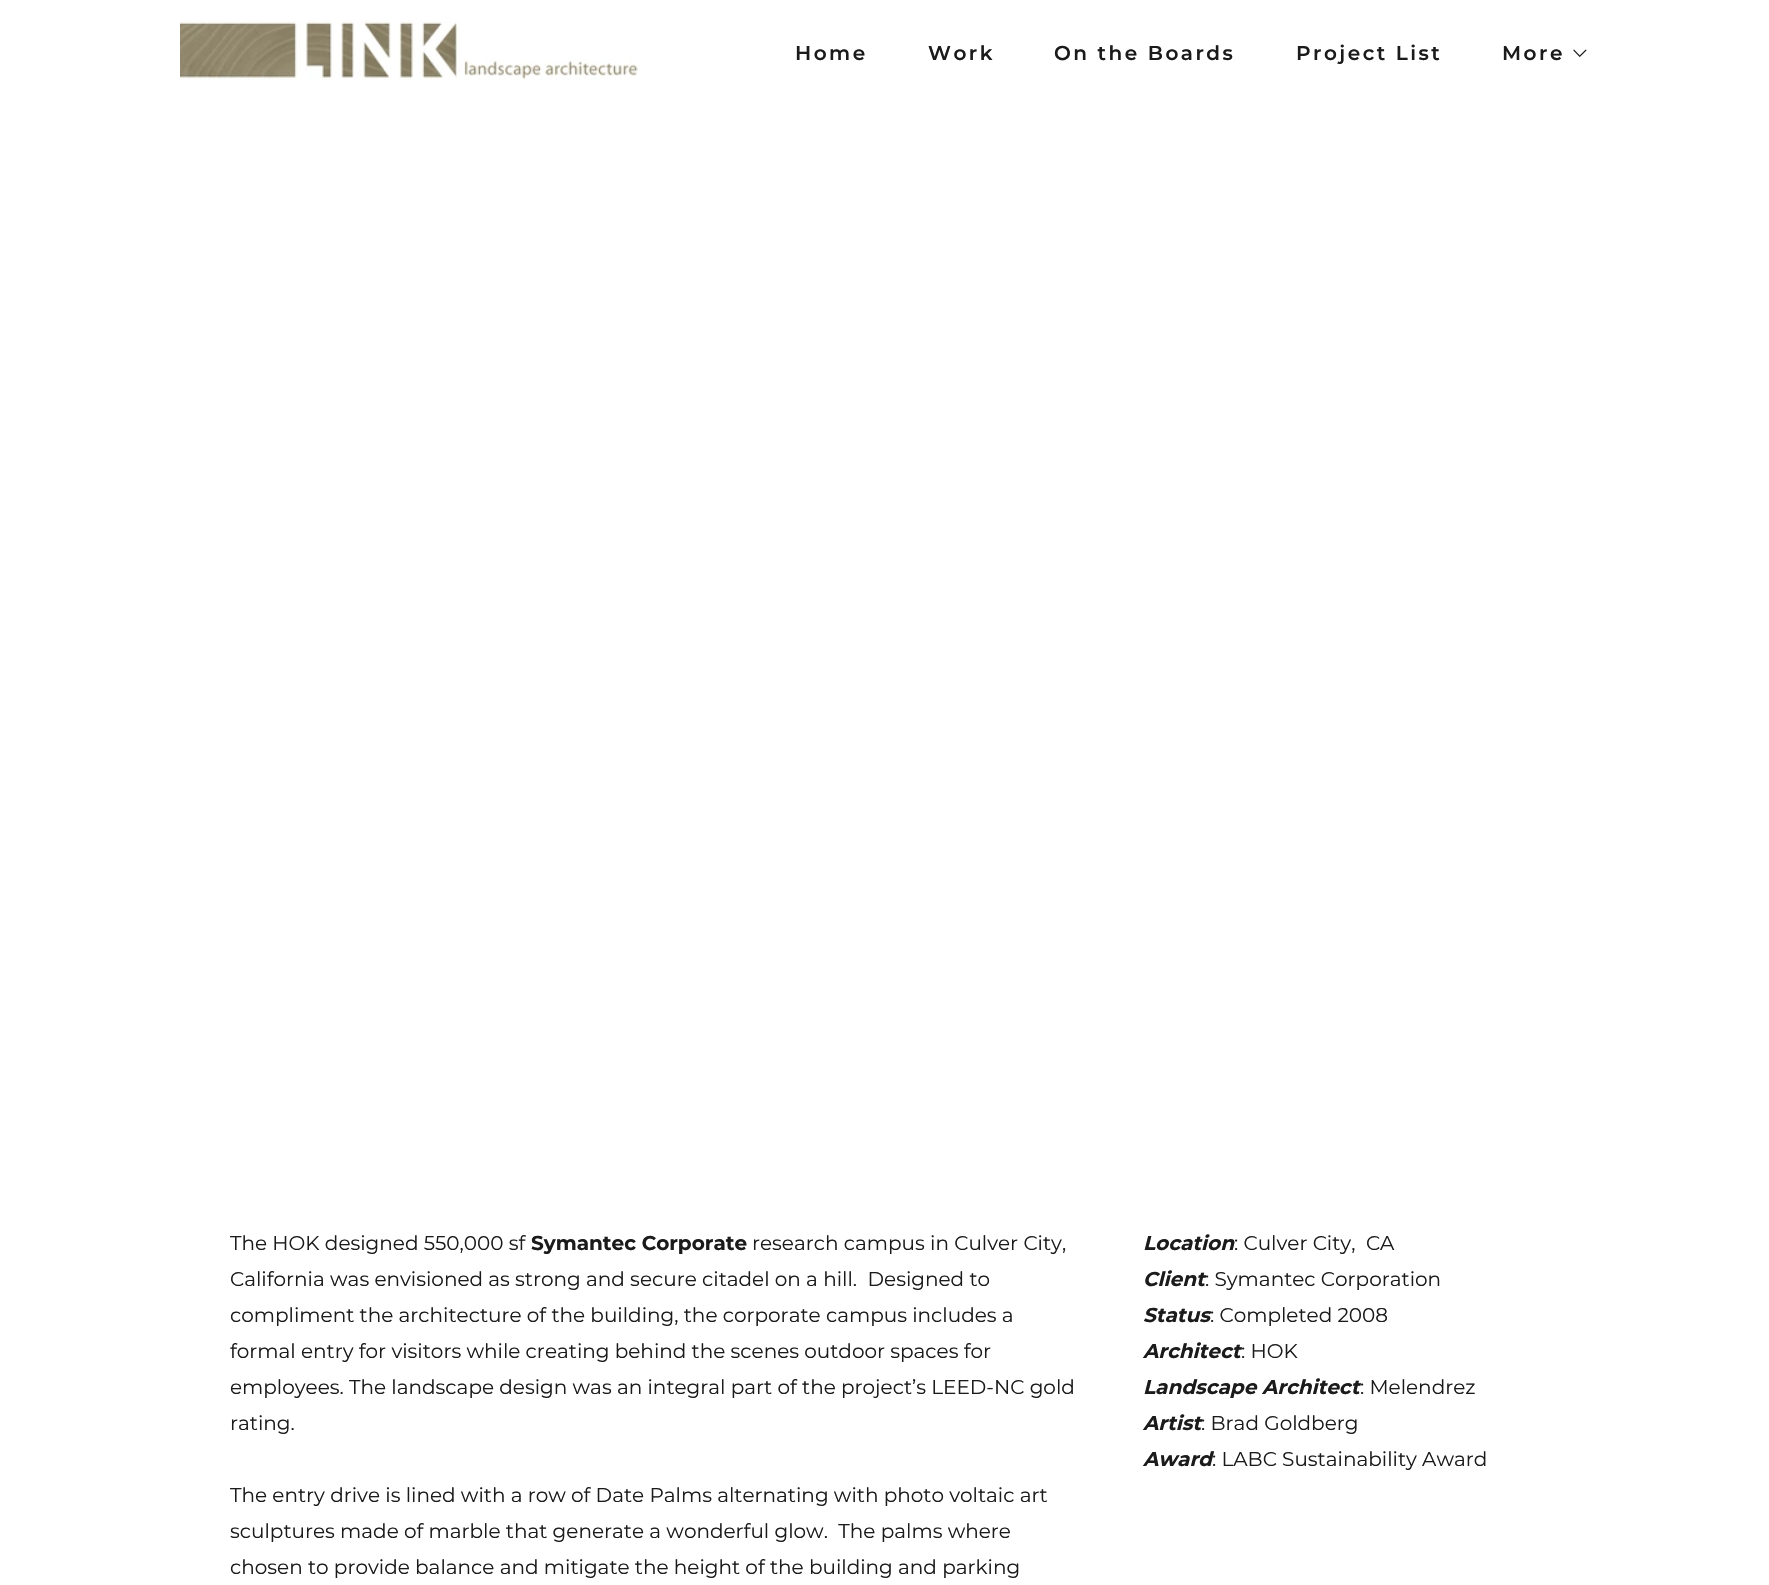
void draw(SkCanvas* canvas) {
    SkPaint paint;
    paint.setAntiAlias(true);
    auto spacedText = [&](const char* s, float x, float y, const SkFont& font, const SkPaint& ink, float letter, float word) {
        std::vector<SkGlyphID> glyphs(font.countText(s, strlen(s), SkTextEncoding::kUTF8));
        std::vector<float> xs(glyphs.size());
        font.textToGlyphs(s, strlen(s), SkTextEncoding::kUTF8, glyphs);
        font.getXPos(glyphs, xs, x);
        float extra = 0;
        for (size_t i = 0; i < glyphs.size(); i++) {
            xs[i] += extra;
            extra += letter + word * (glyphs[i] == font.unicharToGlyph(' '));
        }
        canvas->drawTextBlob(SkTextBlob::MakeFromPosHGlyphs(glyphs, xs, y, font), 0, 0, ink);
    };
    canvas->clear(0xFFFFFFFF);
    canvas->drawImageRect(SkImages::DeferredFromEncodedData(SkData::MakeFromFileName("img1.png")), SkRect::MakeXYWH(180, 20, 458, 61), SkSamplingOptions());
    SkFont font1(fontMgr->matchFamilyStyle("Montserrat", SkFontStyle(600, SkFontStyle::kNormal_Width, SkFontStyle::kUpright_Slant)), 20);
    font1.setSubpixel(true);
    paint.setColor(0xFF1B1B1B);
    spacedText("Home", 795, 60, font1, paint, 2.5f, 0);
    spacedText("Work", 928, 60, font1, paint, 2.5f, 0);
    spacedText("On the Boards", 1054, 60, font1, paint, 2.5f, 0);
    spacedText("Project List", 1296, 60, font1, paint, 2.5f, 0);
    spacedText("More", 1502, 60, font1, paint, 2.5f, 0);
    canvas->drawImageRect(SkImages::DeferredFromEncodedData(SkData::MakeFromFileName("img2.png")), SkRect::MakeXYWH(1573, 49, 14, 8), SkSamplingOptions());
    SkFont font2(fontMgr->matchFamilyStyle("Montserrat", SkFontStyle::Normal()), 20);
    font2.setSubpixel(true);
    canvas->drawString("The HOK designed 550,000 sf", 230, 1250, font2, paint);
    SkFont font3(fontMgr->matchFamilyStyle("Montserrat", SkFontStyle::Bold()), 20);
    font3.setSubpixel(true);
    canvas->drawString("Symantec Corporate", 531, 1250, font3, paint);
    canvas->drawString("research campus in Culver City,", 752, 1250, font2, paint);
    canvas->drawString("California was envisioned as strong and secure citadel on a hill.  Designed to", 230, 1286, font2, paint);
    canvas->drawString("compliment the architecture of the building, the corporate campus includes a", 230, 1322, font2, paint);
    canvas->drawString("formal entry for visitors while creating behind the scenes outdoor spaces for", 230, 1358, font2, paint);
    canvas->drawString("employees. The landscape design was an integral part of the project’s LEED-NC gold", 230, 1394, font2, paint);
    canvas->drawString("rating.", 230, 1430, font2, paint);
    canvas->drawString("The entry drive is lined with a row of Date Palms alternating with photo voltaic art", 230, 1502, font2, paint);
    canvas->drawString("sculptures made of marble that generate a wonderful glow.  The palms where", 230, 1538, font2, paint);
    canvas->drawString("chosen to provide balance and mitigate the height of the building and parking", 230, 1574, font2, paint);
    SkFont font4(fontMgr->matchFamilyStyle("Montserrat", SkFontStyle::BoldItalic()), 20);
    font4.setSubpixel(true);
    canvas->drawString("Location", 1143, 1250, font4, paint);
    canvas->drawString(": Culver City,  CA", 1234, 1250, font2, paint);
    canvas->drawString("Client", 1143, 1286, font4, paint);
    canvas->drawString(": Symantec Corporation", 1205, 1286, font2, paint);
    canvas->drawString("Status", 1143, 1322, font4, paint);
    canvas->drawString(": Completed 2008", 1210, 1322, font2, paint);
    canvas->drawString("Architect", 1143, 1358, font4, paint);
    canvas->drawString(": HOK", 1241, 1358, font2, paint);
    canvas->drawString("Landscape Architect", 1143, 1394, font4, paint);
    canvas->drawString(": Melendrez", 1360, 1394, font2, paint);
    canvas->drawString("Artist", 1143, 1430, font4, paint);
    canvas->drawString(": Brad Goldberg", 1201, 1430, font2, paint);
    canvas->drawString("Award", 1143, 1466, font4, paint);
    canvas->drawString(": LABC Sustainability Award", 1212, 1466, font2, paint);
}
